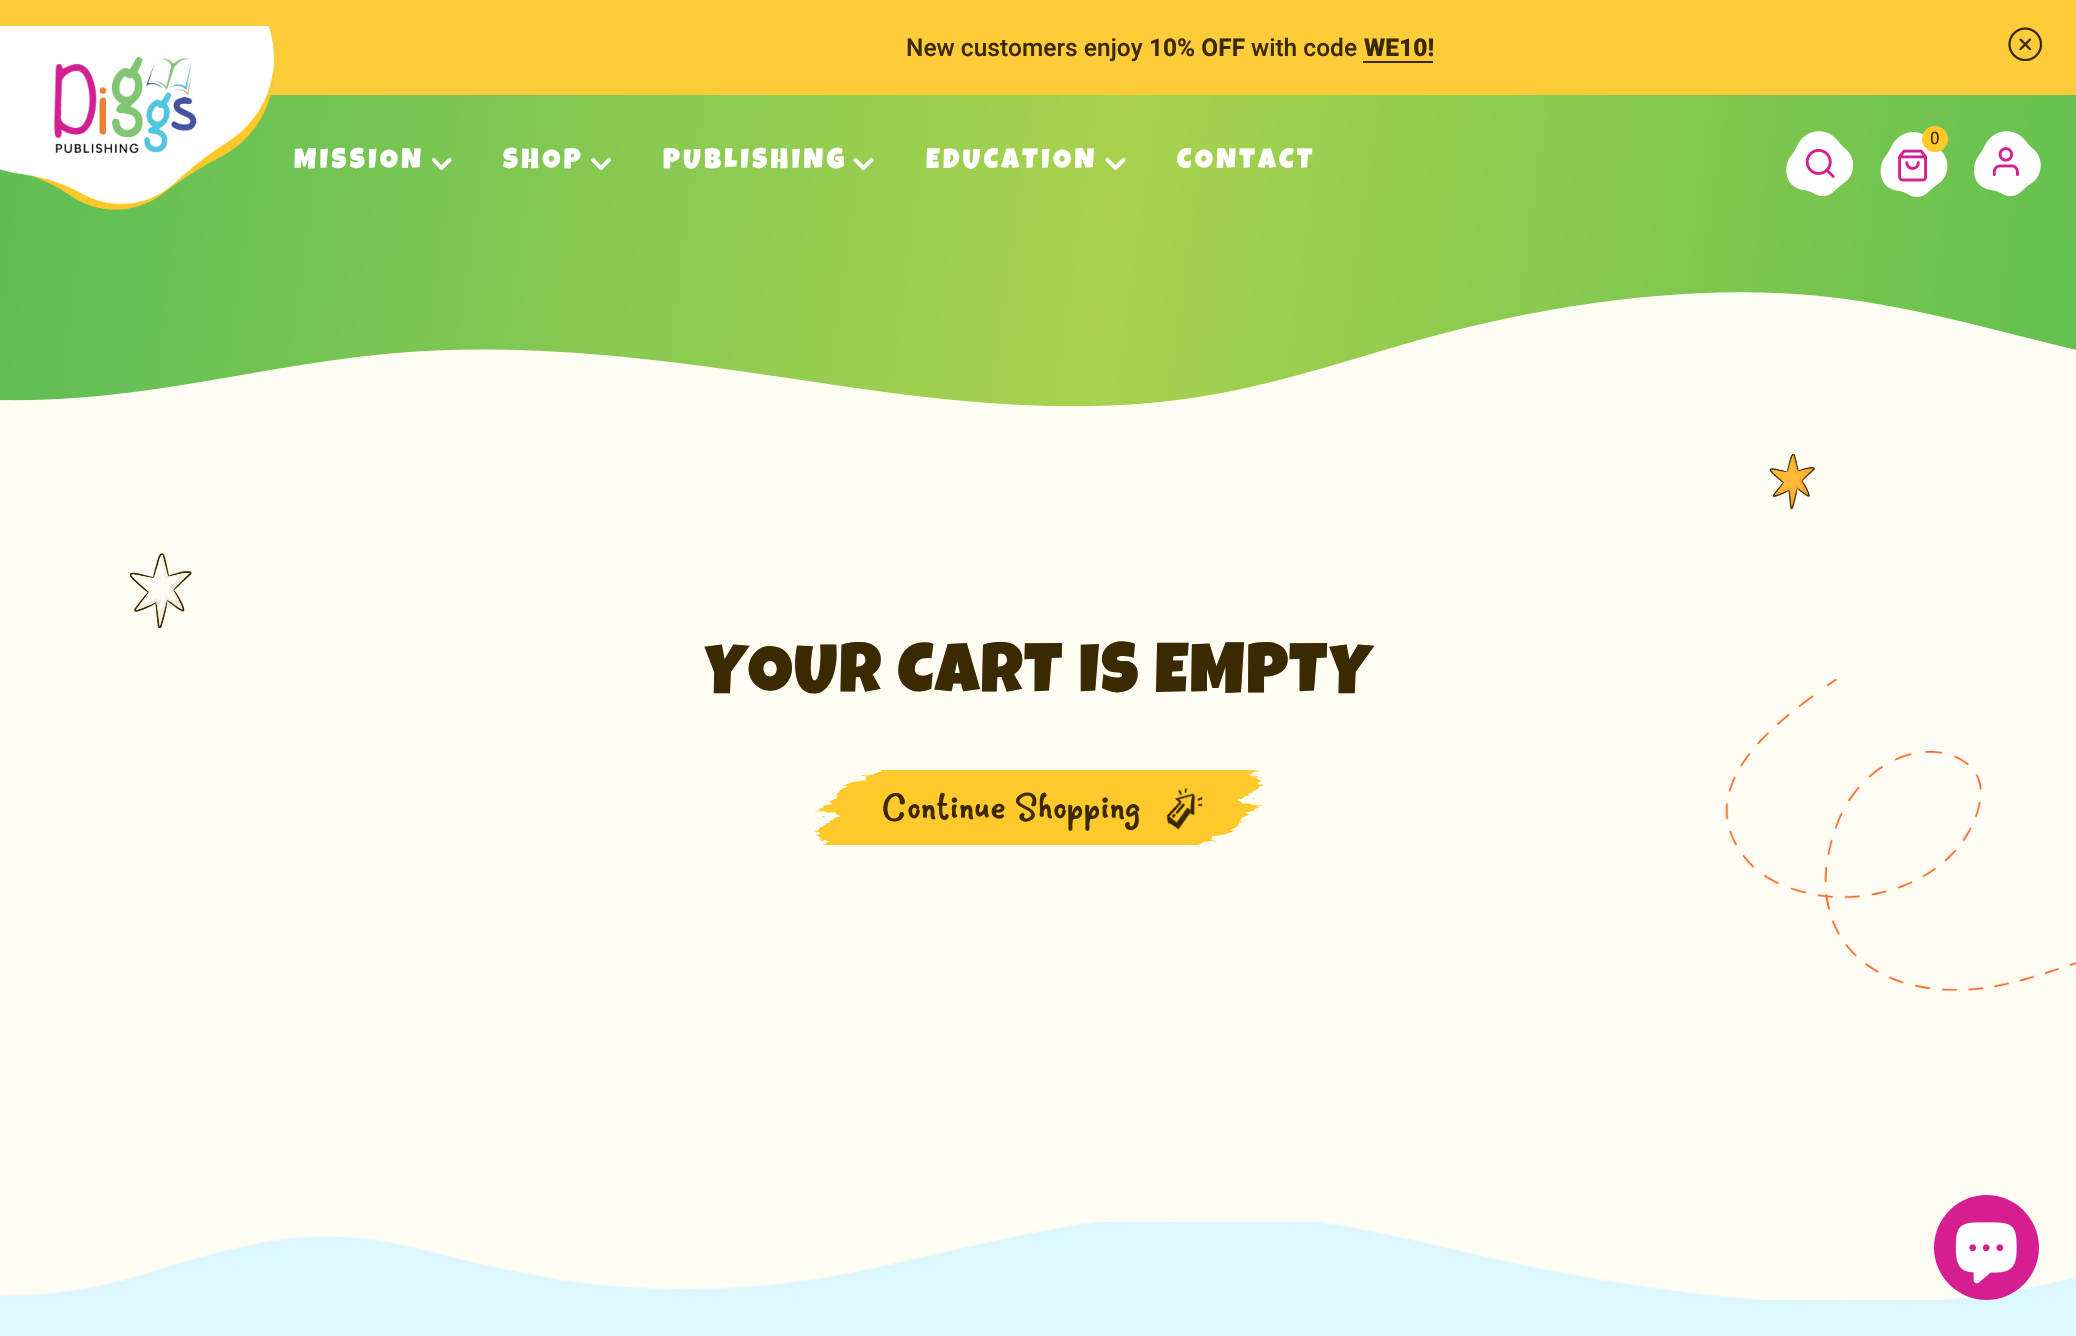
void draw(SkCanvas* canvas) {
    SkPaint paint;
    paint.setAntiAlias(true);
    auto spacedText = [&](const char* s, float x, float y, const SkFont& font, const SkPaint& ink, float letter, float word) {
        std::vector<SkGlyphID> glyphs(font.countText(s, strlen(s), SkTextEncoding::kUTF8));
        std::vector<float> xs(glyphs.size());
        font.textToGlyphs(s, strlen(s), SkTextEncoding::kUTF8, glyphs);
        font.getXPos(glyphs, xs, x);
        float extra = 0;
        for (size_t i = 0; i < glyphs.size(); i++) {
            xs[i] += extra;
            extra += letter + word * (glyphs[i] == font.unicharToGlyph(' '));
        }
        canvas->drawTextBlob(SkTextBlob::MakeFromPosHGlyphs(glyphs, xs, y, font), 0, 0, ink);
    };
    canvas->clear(0xFFFFFCF3);
    paint.setColor(0xFFFFCC39);
    canvas->drawRect(SkRect::MakeXYWH(0, 0, 2076, 95), paint);
    SkFont font1(fontMgr->matchFamilyStyle("Roboto", SkFontStyle(500, SkFontStyle::kNormal_Width, SkFontStyle::kUpright_Slant)), 24.5f);
    font1.setSubpixel(true);
    paint.setColor(0xFF3B2900);
    canvas->drawString("New customers enjoy", 906, 56, font1, paint);
    SkFont font2(fontMgr->matchFamilyStyle("Roboto", SkFontStyle::Bold()), 24.5f);
    font2.setSubpixel(true);
    canvas->drawString("10% OFF", 1149, 56, font2, paint);
    canvas->drawString("with code", 1251, 56, font1, paint);
    SkFont font3(fontMgr->matchFamilyStyle("Roboto", SkFontStyle(900, SkFontStyle::kNormal_Width, SkFontStyle::kUpright_Slant)), 24.5f);
    font3.setSubpixel(true);
    canvas->drawString("WE10!", 1364, 56, font3, paint);
    canvas->drawRect(SkRect::MakeXYWH(1363, 61, 70, 2), paint);
    canvas->drawImageRect(SkImages::DeferredFromEncodedData(SkData::MakeFromFileName("img1.png")), SkRect::MakeXYWH(2008, 27, 34, 34), SkSamplingOptions());
    {
        const SkColor colors[] = {0xFF5EBE55, 0xFFA8D24E, 0xFF5ABE50};
        const float stops[] = {0.01f, 0.5f, 1};
        const SkPoint ends[] = {{-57, 498}, {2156, 809}};
        paint.setShader(SkGradientShader::MakeLinear(ends, colors, stops, 3, SkTileMode::kClamp));
        paint.setAlpha(255);
    }
    canvas->drawRect(SkRect::MakeXYWH(0, 95, 2076, 312), paint);
    canvas->drawImageRect(SkImages::DeferredFromEncodedData(SkData::MakeFromFileName("img2.png")), SkRect::MakeXYWH(0, 26, 275, 184), SkSamplingOptions());
    canvas->drawImageRect(SkImages::DeferredFromEncodedData(SkData::MakeFromFileName("img3.png")), SkRect::MakeXYWH(1786, 131, 67, 66), SkSamplingOptions());
    canvas->drawImageRect(SkImages::DeferredFromEncodedData(SkData::MakeFromFileName("img4.png")), SkRect::MakeXYWH(1880, 132, 68, 65), SkSamplingOptions());
    paint.setShader(nullptr);
    paint.setColor(0xFFFFC82B);
    canvas->drawCircle(1935, 139, 13, paint);
    SkFont font4(fontMgr->matchFamilyStyle("Roboto", SkFontStyle::Normal()), 17);
    font4.setSubpixel(true);
    paint.setColor(0xFF3B2900);
    canvas->drawString("0", 1930, 144, font4, paint);
    canvas->drawImageRect(SkImages::DeferredFromEncodedData(SkData::MakeFromFileName("img5.png")), SkRect::MakeXYWH(1974, 131, 67, 66), SkSamplingOptions());
    SkFont font5(fontMgr->matchFamilyStyle("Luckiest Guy", SkFontStyle::Normal()), 28);
    font5.setSubpixel(true);
    paint.setColor(0xFFFFFFFF);
    spacedText("MISSION", 294, 168, font5, paint, 3.5f, 0);
    paint.setStyle(SkPaint::kStroke_Style);
    paint.setStrokeWidth(3.9f);
    paint.setStrokeCap(SkPaint::kRound_Cap);
    paint.setStrokeJoin(SkPaint::kRound_Join);
    canvas->drawPath(SkPathBuilder().moveTo(434, 160).lineTo(441.5f, 168).lineTo(449.5f, 160).detach(), paint);
    paint.setStyle(SkPaint::kFill_Style);
    spacedText("SHOP", 503, 168, font5, paint, 3.5f, 0);
    paint.setStyle(SkPaint::kStroke_Style);
    canvas->drawPath(SkPathBuilder().moveTo(593, 160).lineTo(601, 168).lineTo(609, 160).detach(), paint);
    paint.setStyle(SkPaint::kFill_Style);
    spacedText("PUBLISHING", 663, 168, font5, paint, 3.5f, 0);
    paint.setStyle(SkPaint::kStroke_Style);
    canvas->drawPath(SkPathBuilder().moveTo(855.5f, 160).lineTo(863.5f, 168).lineTo(871.5f, 160).detach(), paint);
    paint.setStyle(SkPaint::kFill_Style);
    spacedText("EDUCATION", 926, 168, font5, paint, 3.5f, 0);
    paint.setStyle(SkPaint::kStroke_Style);
    canvas->drawPath(SkPathBuilder().moveTo(1107.5f, 160).lineTo(1115.5f, 168).lineTo(1123.5f, 160).detach(), paint);
    paint.setStyle(SkPaint::kFill_Style);
    spacedText("CONTACT", 1177, 168, font5, paint, 3.5f, 0);
    canvas->drawImageRect(SkImages::DeferredFromEncodedData(SkData::MakeFromFileName("img6.png")), SkRect::MakeXYWH(0, 292, 2076, 158), SkSamplingOptions());
    canvas->drawImageRect(SkImages::DeferredFromEncodedData(SkData::MakeFromFileName("img7.png")), SkRect::MakeXYWH(1769, 454, 46, 56), SkSamplingOptions());
    canvas->drawImageRect(SkImages::DeferredFromEncodedData(SkData::MakeFromFileName("img8.png")), SkRect::MakeXYWH(130, 553, 62, 75), SkSamplingOptions());
    SkFont font6(fontMgr->matchFamilyStyle("Luckiest Guy", SkFontStyle::Normal()), 70);
    font6.setSubpixel(true);
    paint.setColor(0xFF3B2900);
    spacedText("YOUR CART IS EMPTY", 704, 692, font6, paint, 1.4f, 0);
    canvas->drawImageRect(SkImages::DeferredFromEncodedData(SkData::MakeFromFileName("img9.png")), SkRect::MakeXYWH(814, 770, 450, 75), SkSamplingOptions());
    SkFont font7(fontMgr->matchFamilyStyle("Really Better", SkFontStyle::Normal()), 40.25f);
    font7.setSubpixel(true);
    spacedText("Continue Shopping", 883, 819, font7, paint, 1.25f, 0);
    canvas->drawImageRect(SkImages::DeferredFromEncodedData(SkData::MakeFromFileName("img10.png")), SkRect::MakeXYWH(1166, 788, 37, 42), SkSamplingOptions());
    canvas->drawImageRect(SkImages::DeferredFromEncodedData(SkData::MakeFromFileName("img11.png")), SkRect::MakeXYWH(1725, 678, 351, 313), SkSamplingOptions());
    paint.setColor(0xFFDCF7FF);
    canvas->drawRect(SkRect::MakeXYWH(0, 1300, 2076, 36), paint);
    canvas->drawImageRect(SkImages::DeferredFromEncodedData(SkData::MakeFromFileName("img12.png")), SkRect::MakeXYWH(0, 1222, 2076, 84), SkSamplingOptions());
    paint.setColor(0xFFD51F91);
    canvas->drawCircle(1986.5f, 1247.5f, 52.5f, paint);
    canvas->drawImageRect(SkImages::DeferredFromEncodedData(SkData::MakeFromFileName("img13.png")), SkRect::MakeXYWH(1955, 1222, 62, 62), SkSamplingOptions());
}
